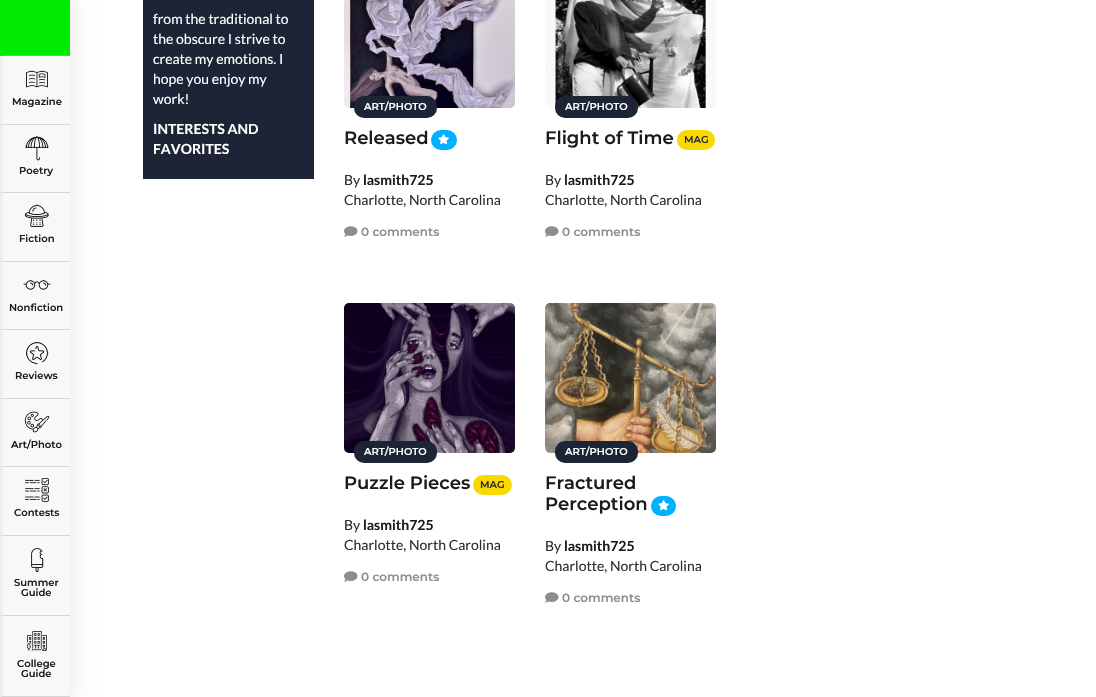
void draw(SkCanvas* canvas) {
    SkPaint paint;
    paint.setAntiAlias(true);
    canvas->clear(0xFFFFFFFF);
    paint.setColor(0x1A000000);
    paint.setMaskFilter(SkMaskFilter::MakeBlur(kNormal_SkBlurStyle, 10));
    canvas->drawRect(SkRect::MakeXYWH(-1, -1, 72, 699), paint);
    paint.setMaskFilter(nullptr);
    paint.setColor(0xFFF8F8F8);
    canvas->drawRect(SkRect::MakeXYWH(3, 56, 67, 640), paint);
    paint.setColor(0xFF00EA00);
    canvas->drawRect(SkRect::MakeXYWH(0, 0, 70, 56), paint);
    paint.setColor(0xFF36E536);
    canvas->drawPath(SkPathBuilder().moveTo(70, 56).lineTo(0, 56).lineTo(3, 55).lineTo(70, 55).close().detach(), paint);
    paint.setColor(0xFF00EA00);
    canvas->drawPath(SkPathBuilder().moveTo(0, 56).lineTo(0, 0).lineTo(3, 0).lineTo(3, 55).close().detach(), paint);
    paint.setColor(0xFFEEEEEE);
    canvas->drawRect(SkRect::MakeXYWH(0, 56, 1, 343), paint);
    paint.setColor(0xFFD6D6D6);
    canvas->drawPath(SkPathBuilder().moveTo(70, 125).lineTo(0, 125).lineTo(3, 124).lineTo(70, 124).close().detach(), paint);
    canvas->drawImageRect(SkImages::DeferredFromEncodedData(SkData::MakeFromFileName("img1.png")), SkRect::MakeXYWH(26, 70, 22, 18), SkSamplingOptions());
    SkFont font1(fontMgr->matchFamilyStyle("Montserrat", SkFontStyle(600, SkFontStyle::kNormal_Width, SkFontStyle::kUpright_Slant)), 10);
    font1.setSubpixel(true);
    paint.setColor(0xFF1B1B1B);
    canvas->drawString("Magazine", 12, 105, font1, paint);
    paint.setColor(0xFFD6D6D6);
    canvas->drawPath(SkPathBuilder().moveTo(70, 193).lineTo(0, 193).lineTo(3, 192).lineTo(70, 192).close().detach(), paint);
    canvas->drawImageRect(SkImages::DeferredFromEncodedData(SkData::MakeFromFileName("img2.png")), SkRect::MakeXYWH(25, 136, 24, 25), SkSamplingOptions());
    paint.setColor(0xFF1B1B1B);
    canvas->drawString("Poetry", 19, 174, font1, paint);
    paint.setColor(0xFFD6D6D6);
    canvas->drawPath(SkPathBuilder().moveTo(70, 262).lineTo(0, 262).lineTo(3, 261).lineTo(70, 261).close().detach(), paint);
    canvas->drawImageRect(SkImages::DeferredFromEncodedData(SkData::MakeFromFileName("img3.png")), SkRect::MakeXYWH(25, 204, 24, 23), SkSamplingOptions());
    paint.setColor(0xFF1B1B1B);
    canvas->drawString("Fiction", 19, 242, font1, paint);
    paint.setColor(0xFFD6D6D6);
    canvas->drawPath(SkPathBuilder().moveTo(70, 330).lineTo(0, 330).lineTo(3, 329).lineTo(70, 329).close().detach(), paint);
    canvas->drawImageRect(SkImages::DeferredFromEncodedData(SkData::MakeFromFileName("img4.png")), SkRect::MakeXYWH(23, 280, 28, 10), SkSamplingOptions());
    paint.setColor(0xFF1B1B1B);
    canvas->drawString("Nonfiction", 9, 311, font1, paint);
    paint.setColor(0xFFD6D6D6);
    canvas->drawPath(SkPathBuilder().moveTo(70, 399).lineTo(0, 399).lineTo(3, 398).lineTo(70, 398).close().detach(), paint);
    canvas->drawImageRect(SkImages::DeferredFromEncodedData(SkData::MakeFromFileName("img5.png")), SkRect::MakeXYWH(26, 342, 23, 23), SkSamplingOptions());
    paint.setColor(0xFF1B1B1B);
    canvas->drawString("Reviews", 15, 379, font1, paint);
    paint.setColor(0xFFEEEEEE);
    canvas->drawRect(SkRect::MakeXYWH(0, 399, 1, 217), paint);
    paint.setColor(0xFFD6D6D6);
    canvas->drawPath(SkPathBuilder().moveTo(70, 467).lineTo(0, 467).lineTo(3, 466).lineTo(70, 466).close().detach(), paint);
    canvas->drawImageRect(SkImages::DeferredFromEncodedData(SkData::MakeFromFileName("img6.png")), SkRect::MakeXYWH(24, 411, 26, 22), SkSamplingOptions());
    paint.setColor(0xFF1B1B1B);
    canvas->drawString("Art/Photo", 11, 448, font1, paint);
    paint.setColor(0xFFD6D6D6);
    canvas->drawPath(SkPathBuilder().moveTo(70, 536).lineTo(0, 536).lineTo(3, 535).lineTo(70, 535).close().detach(), paint);
    canvas->drawImageRect(SkImages::DeferredFromEncodedData(SkData::MakeFromFileName("img7.png")), SkRect::MakeXYWH(25, 478, 24, 24), SkSamplingOptions());
    paint.setColor(0xFF1B1B1B);
    canvas->drawString("Contests", 14, 516, font1, paint);
    paint.setColor(0xFFD6D6D6);
    canvas->drawPath(SkPathBuilder().moveTo(70, 616).lineTo(0, 616).lineTo(3, 615).lineTo(70, 615).close().detach(), paint);
    canvas->drawImageRect(SkImages::DeferredFromEncodedData(SkData::MakeFromFileName("img8.png")), SkRect::MakeXYWH(31, 548, 13, 24), SkSamplingOptions());
    paint.setColor(0xFF1B1B1B);
    canvas->drawString("Summer", 14, 586, font1, paint);
    canvas->drawString("Guide", 21, 596, font1, paint);
    paint.setColor(0xFFEEEEEE);
    canvas->drawRect(SkRect::MakeXYWH(0, 616, 3, 81), paint);
    paint.setColor(0xFFD6D6D6);
    canvas->drawPath(SkPathBuilder().moveTo(70, 697).lineTo(0, 697).lineTo(3, 696).lineTo(70, 696).close().detach(), paint);
    canvas->drawImageRect(SkImages::DeferredFromEncodedData(SkData::MakeFromFileName("img9.png")), SkRect::MakeXYWH(27, 631, 20, 20), SkSamplingOptions());
    paint.setColor(0xFF1B1B1B);
    canvas->drawString("College", 17, 667, font1, paint);
    canvas->drawString("Guide", 21, 677, font1, paint);
    paint.setColor(0xFF1C2436);
    canvas->drawRect(SkRect::MakeXYWH(143, 0, 171, 179), paint);
    SkFont font2(fontMgr->matchFamilyStyle("Lato", SkFontStyle::Normal()), 14);
    font2.setSubpixel(true);
    paint.setColor(0xFFFFFFFF);
    canvas->drawString("from the traditional to", 153, 24, font2, paint);
    canvas->drawString("the obscure I strive to", 153, 44, font2, paint);
    canvas->drawString("create my emotions. I", 153, 64, font2, paint);
    canvas->drawString("hope you enjoy my", 153, 84, font2, paint);
    canvas->drawString("work!", 153, 104, font2, paint);
    SkFont font3(fontMgr->matchFamilyStyle("Lato", SkFontStyle::Bold()), 14);
    font3.setSubpixel(true);
    canvas->drawString("INTERESTS AND", 153, 134, font3, paint);
    canvas->drawString("FAVORITES", 153, 154, font3, paint);
    canvas->drawImageRect(SkImages::DeferredFromEncodedData(SkData::MakeFromFileName("img10.png")), SkRect::MakeXYWH(344, 0, 171, 108), SkSamplingOptions());
    paint.setColor(0xFF1C2436);
    canvas->drawRoundRect(SkRect::MakeXYWH(354, 96, 83, 22), 10, 10, paint);
    paint.setColor(0xFFFFFFFF);
    canvas->drawString("ART/PHOTO", 364, 110, font1, paint);
    SkFont font4(fontMgr->matchFamilyStyle("Montserrat", SkFontStyle(600, SkFontStyle::kNormal_Width, SkFontStyle::kUpright_Slant)), 18);
    font4.setSubpixel(true);
    paint.setColor(0xFF1B1B1B);
    canvas->drawString("Released", 344, 144, font4, paint);
    paint.setColor(0xFF00B1FF);
    canvas->drawRoundRect(SkRect::MakeXYWH(431, 130, 26, 20), 10, 10, paint);
    canvas->drawImageRect(SkImages::DeferredFromEncodedData(SkData::MakeFromFileName("img11.png")), SkRect::MakeXYWH(438, 134, 11, 11), SkSamplingOptions());
    paint.setColor(0xFF2E2D30);
    canvas->drawString("By", 344, 185, font2, paint);
    paint.setColor(0xFF1B1B1B);
    canvas->drawString("lasmith725", 363, 185, font3, paint);
    paint.setColor(0xFF2E2D30);
    canvas->drawString("Charlotte, North Carolina", 344, 205, font2, paint);
    canvas->drawImageRect(SkImages::DeferredFromEncodedData(SkData::MakeFromFileName("img12.png")), SkRect::MakeXYWH(344, 226, 14, 11), SkSamplingOptions());
    SkFont font5(fontMgr->matchFamilyStyle("Montserrat", SkFontStyle(600, SkFontStyle::kNormal_Width, SkFontStyle::kUpright_Slant)), 12);
    font5.setSubpixel(true);
    paint.setColor(0xFF8D8D8D);
    canvas->drawString("0 comments", 361, 236, font5, paint);
    canvas->drawImageRect(SkImages::DeferredFromEncodedData(SkData::MakeFromFileName("img13.png")), SkRect::MakeXYWH(545, 0, 171, 108), SkSamplingOptions());
    paint.setColor(0xFF1C2436);
    canvas->drawRoundRect(SkRect::MakeXYWH(555, 96, 83, 22), 10, 10, paint);
    paint.setColor(0xFFFFFFFF);
    canvas->drawString("ART/PHOTO", 565, 110, font1, paint);
    paint.setColor(0xFF1B1B1B);
    canvas->drawString("Flight of Time", 545, 144, font4, paint);
    paint.setColor(0xFFFAD900);
    canvas->drawRoundRect(SkRect::MakeXYWH(677, 130, 38, 20), 10, 10, paint);
    paint.setColor(0xFF2E2D30);
    canvas->drawString("MAG", 684, 143, font1, paint);
    canvas->drawString("By", 545, 185, font2, paint);
    paint.setColor(0xFF1B1B1B);
    canvas->drawString("lasmith725", 564, 185, font3, paint);
    paint.setColor(0xFF2E2D30);
    canvas->drawString("Charlotte, North Carolina", 545, 205, font2, paint);
    canvas->drawImageRect(SkImages::DeferredFromEncodedData(SkData::MakeFromFileName("img12.png")), SkRect::MakeXYWH(545, 226, 14, 11), SkSamplingOptions());
    paint.setColor(0xFF8D8D8D);
    canvas->drawString("0 comments", 562, 236, font5, paint);
    canvas->drawImageRect(SkImages::DeferredFromEncodedData(SkData::MakeFromFileName("img14.png")), SkRect::MakeXYWH(344, 303, 171, 150), SkSamplingOptions());
    paint.setColor(0xFF1C2436);
    canvas->drawRoundRect(SkRect::MakeXYWH(354, 441, 83, 22), 10, 10, paint);
    paint.setColor(0xFFFFFFFF);
    canvas->drawString("ART/PHOTO", 364, 455, font1, paint);
    paint.setColor(0xFF1B1B1B);
    canvas->drawString("Puzzle Pieces", 344, 489, font4, paint);
    paint.setColor(0xFFFAD900);
    canvas->drawRoundRect(SkRect::MakeXYWH(473, 475, 39, 20), 10, 10, paint);
    paint.setColor(0xFF2E2D30);
    canvas->drawString("MAG", 480, 488, font1, paint);
    canvas->drawString("By", 344, 530, font2, paint);
    paint.setColor(0xFF1B1B1B);
    canvas->drawString("lasmith725", 363, 530, font3, paint);
    paint.setColor(0xFF2E2D30);
    canvas->drawString("Charlotte, North Carolina", 344, 550, font2, paint);
    canvas->drawImageRect(SkImages::DeferredFromEncodedData(SkData::MakeFromFileName("img12.png")), SkRect::MakeXYWH(344, 571, 14, 11), SkSamplingOptions());
    paint.setColor(0xFF8D8D8D);
    canvas->drawString("0 comments", 361, 581, font5, paint);
    canvas->drawImageRect(SkImages::DeferredFromEncodedData(SkData::MakeFromFileName("img15.png")), SkRect::MakeXYWH(545, 303, 171, 150), SkSamplingOptions());
    paint.setColor(0xFF1C2436);
    canvas->drawRoundRect(SkRect::MakeXYWH(555, 441, 83, 22), 10, 10, paint);
    paint.setColor(0xFFFFFFFF);
    canvas->drawString("ART/PHOTO", 565, 455, font1, paint);
    paint.setColor(0xFF1B1B1B);
    canvas->drawString("Fractured", 545, 489, font4, paint);
    canvas->drawString("Perception", 545, 510, font4, paint);
    paint.setColor(0xFF00B1FF);
    canvas->drawRoundRect(SkRect::MakeXYWH(651, 496, 25, 20), 10, 10, paint);
    canvas->drawImageRect(SkImages::DeferredFromEncodedData(SkData::MakeFromFileName("img11.png")), SkRect::MakeXYWH(658, 500, 11, 11), SkSamplingOptions());
    paint.setColor(0xFF2E2D30);
    canvas->drawString("By", 545, 551, font2, paint);
    paint.setColor(0xFF1B1B1B);
    canvas->drawString("lasmith725", 564, 551, font3, paint);
    paint.setColor(0xFF2E2D30);
    canvas->drawString("Charlotte, North Carolina", 545, 571, font2, paint);
    canvas->drawImageRect(SkImages::DeferredFromEncodedData(SkData::MakeFromFileName("img12.png")), SkRect::MakeXYWH(545, 592, 14, 11), SkSamplingOptions());
    paint.setColor(0xFF8D8D8D);
    canvas->drawString("0 comments", 562, 602, font5, paint);
}
